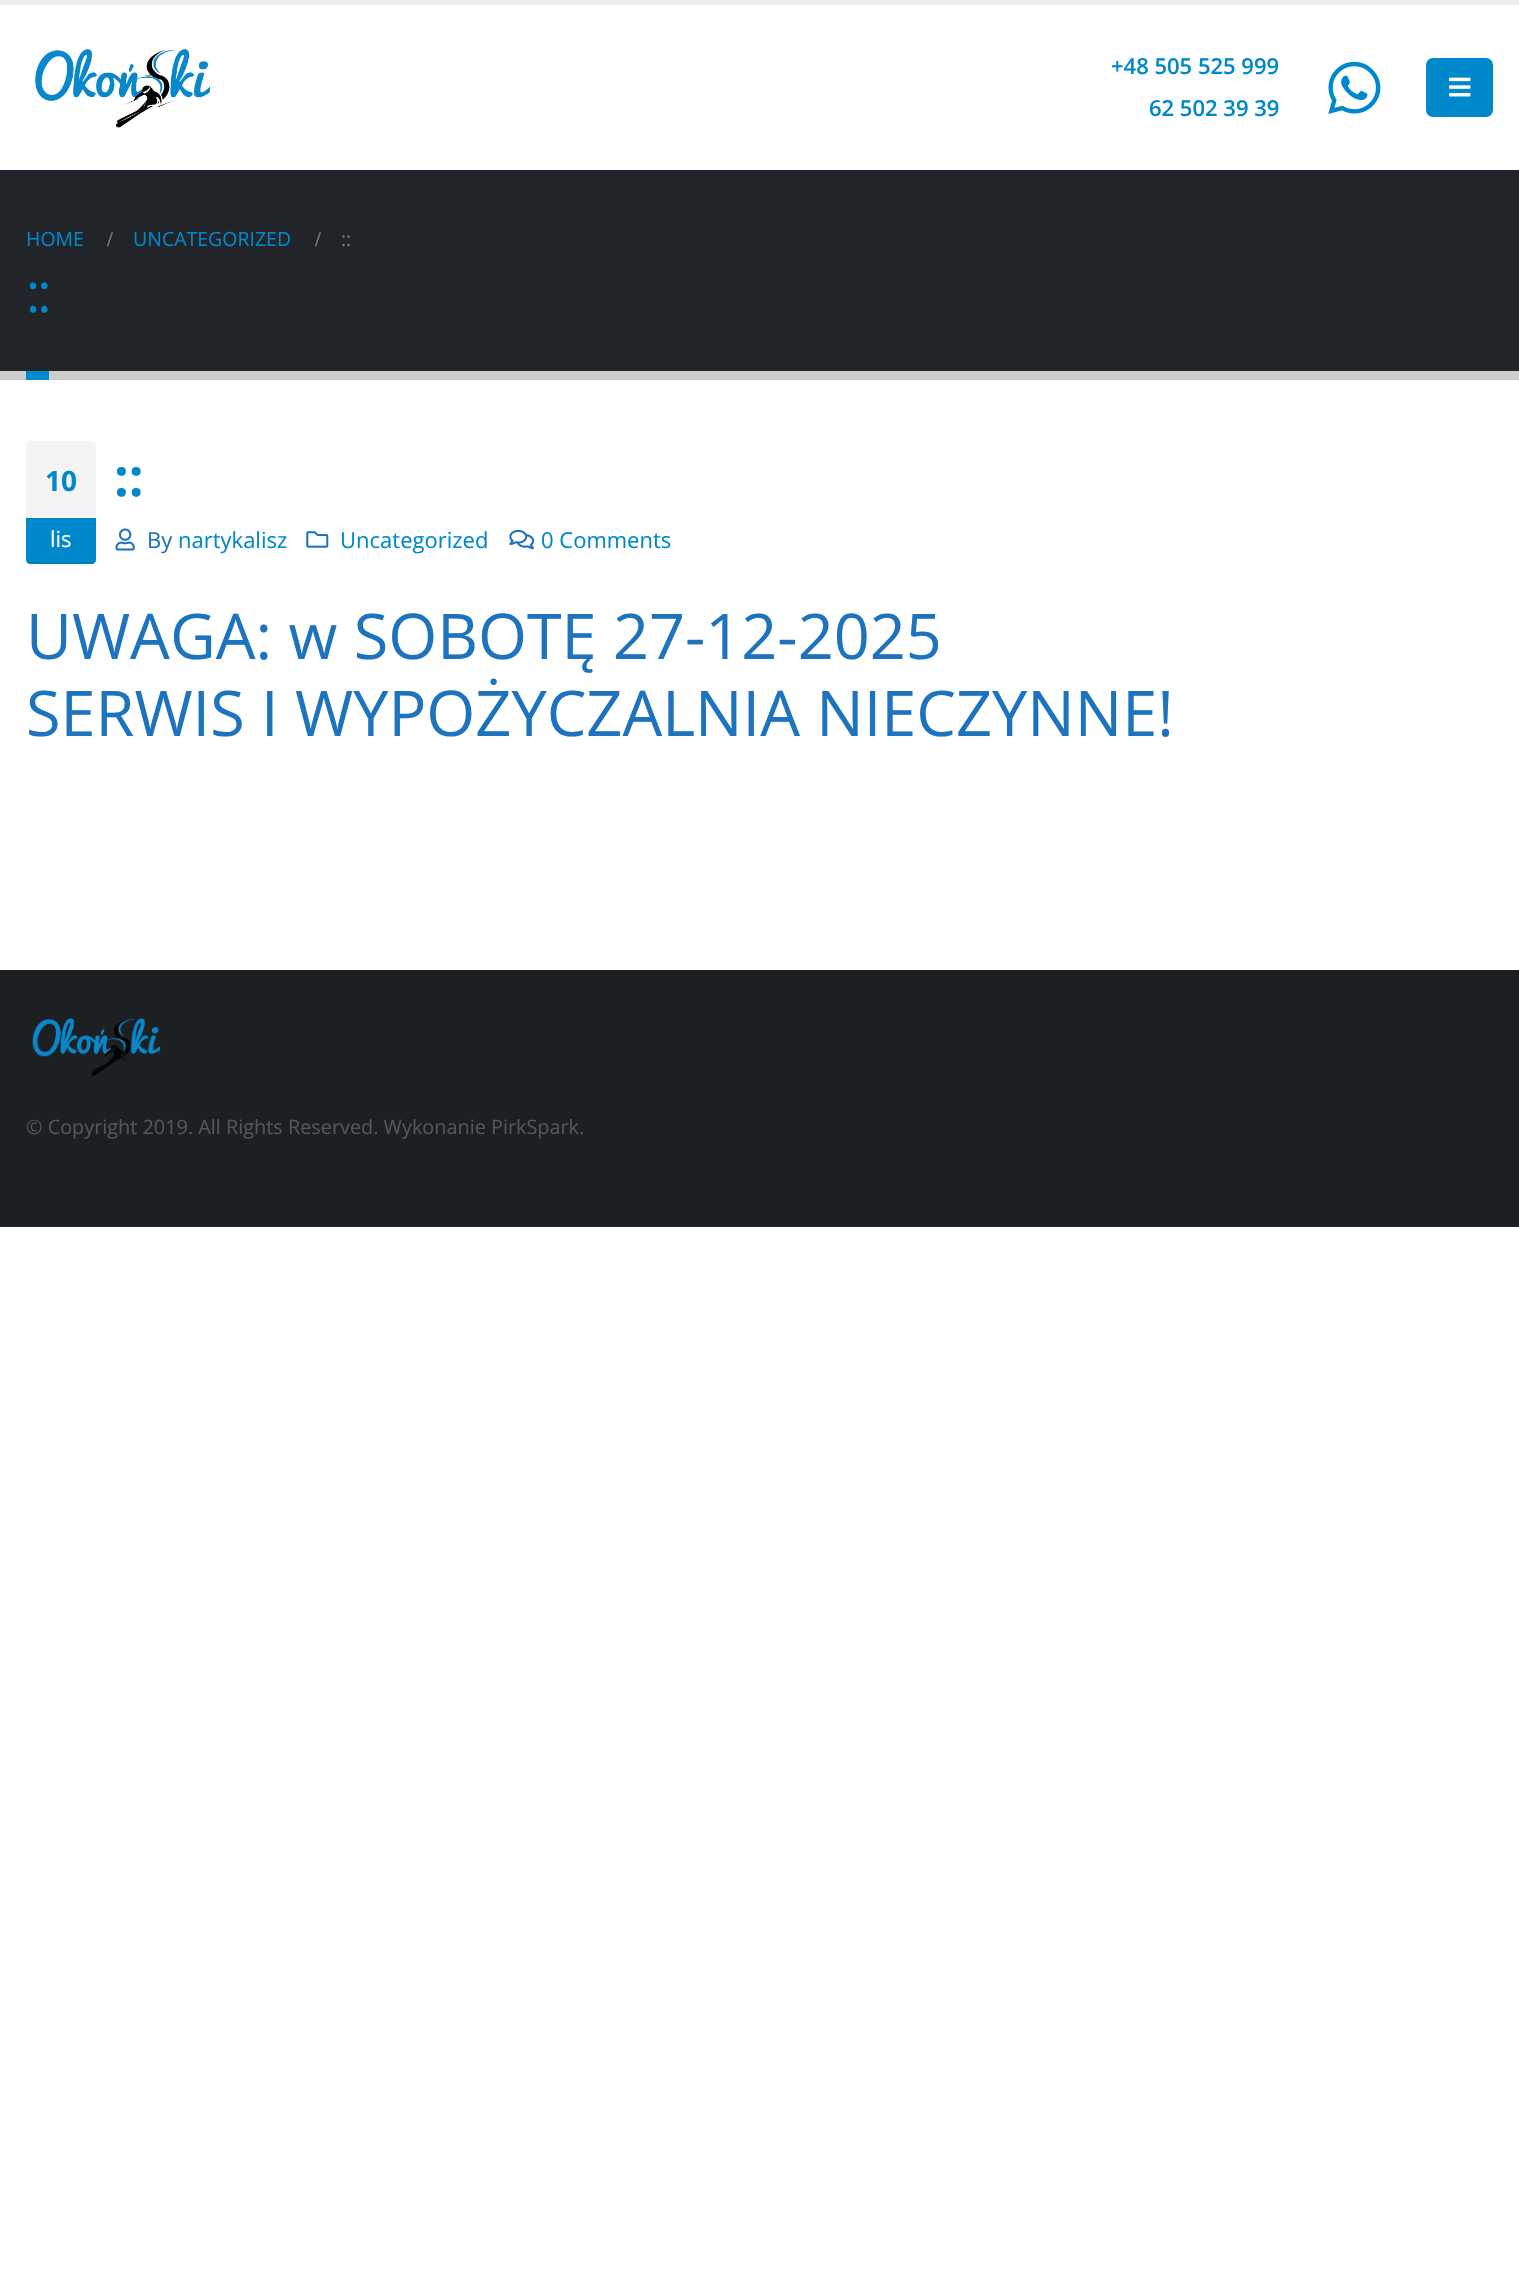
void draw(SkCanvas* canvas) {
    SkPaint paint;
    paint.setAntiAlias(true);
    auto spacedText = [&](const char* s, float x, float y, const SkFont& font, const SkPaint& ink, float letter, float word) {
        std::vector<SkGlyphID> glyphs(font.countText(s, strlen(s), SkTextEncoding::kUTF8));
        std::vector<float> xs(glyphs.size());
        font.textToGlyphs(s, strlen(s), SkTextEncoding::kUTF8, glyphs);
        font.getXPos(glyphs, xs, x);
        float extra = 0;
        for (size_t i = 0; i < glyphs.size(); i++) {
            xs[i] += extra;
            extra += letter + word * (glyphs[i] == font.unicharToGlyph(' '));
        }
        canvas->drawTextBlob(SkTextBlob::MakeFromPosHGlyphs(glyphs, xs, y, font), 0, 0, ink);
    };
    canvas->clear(0xFFFFFFFF);
    paint.setColor(0xFFEDEDED);
    canvas->drawRect(SkRect::MakeXYWH(0, 0, 1519, 5), paint);
    canvas->drawImageRect(SkImages::DeferredFromEncodedData(SkData::MakeFromFileName("img1.png")), SkRect::MakeXYWH(35, 49, 175, 79), SkSamplingOptions());
    SkFont font1(fontMgr->matchFamilyStyle("Open Sans", SkFontStyle(600, SkFontStyle::kNormal_Width, SkFontStyle::kUpright_Slant)), 22);
    font1.setSubpixel(true);
    paint.setColor(0xFF0088CC);
    canvas->drawString("+48 505 525 999", 1111, 74, font1, paint);
    canvas->drawString("62 502 39 39", 1149, 116, font1, paint);
    canvas->drawImageRect(SkImages::DeferredFromEncodedData(SkData::MakeFromFileName("img2.png")), SkRect::MakeXYWH(1328, 61, 53, 53), SkSamplingOptions());
    canvas->drawRoundRect(SkRect::MakeXYWH(1426, 58, 67, 59), 7, 7, paint);
    canvas->drawImageRect(SkImages::DeferredFromEncodedData(SkData::MakeFromFileName("img3.png")), SkRect::MakeXYWH(1449, 77, 22, 20), SkSamplingOptions());
    paint.setColor(0xFF212529);
    canvas->drawRect(SkRect::MakeXYWH(0, 170, 1519, 201), paint);
    paint.setColor(0xFFCCCCCC);
    canvas->drawRect(SkRect::MakeXYWH(0, 371, 1519, 9), paint);
    SkFont font2(fontMgr->matchFamilyStyle("Open Sans", SkFontStyle::Normal()), 19.5f);
    font2.setSubpixel(true);
    paint.setColor(0xFF0088CC);
    canvas->drawString("HOME", 26, 246, font2, paint);
    SkFont font3(fontMgr->matchFamilyStyle("Liberation Serif", SkFontStyle::Bold()), 21);
    font3.setSubpixel(true);
    paint.setColor(0xFF777777);
    canvas->drawString("/", 107, 246, font3, paint);
    paint.setColor(0xFF0088CC);
    canvas->drawString("UNCATEGORIZED", 133, 246, font2, paint);
    paint.setColor(0xFF777777);
    canvas->drawString("/", 315, 246, font3, paint);
    canvas->drawString("::", 341, 246, font2, paint);
    SkFont font4(fontMgr->matchFamilyStyle("Open Sans", SkFontStyle::Normal()), 54);
    font4.setSubpixel(true);
    paint.setColor(0xFF0088CC);
    spacedText("::", 26, 312, font4, paint, -3, 0);
    canvas->drawRect(SkRect::MakeXYWH(26, 371, 23, 9), paint);
    SkFont font5(fontMgr->matchFamilyStyle("Open Sans", SkFontStyle::Bold()), 52);
    font5.setSubpixel(true);
    canvas->drawString("::", 114, 496, font5, paint);
    canvas->drawImageRect(SkImages::DeferredFromEncodedData(SkData::MakeFromFileName("img4.png")), SkRect::MakeXYWH(115, 528, 20, 23), SkSamplingOptions());
    SkFont font6(fontMgr->matchFamilyStyle("Open Sans", SkFontStyle::Normal()), 22);
    font6.setSubpixel(true);
    paint.setColor(0xFF1E73BE);
    canvas->drawString("By", 147, 548, font6, paint);
    paint.setColor(0xFF0088CC);
    canvas->drawString("nartykalisz", 178, 548, font6, paint);
    canvas->drawImageRect(SkImages::DeferredFromEncodedData(SkData::MakeFromFileName("img5.png")), SkRect::MakeXYWH(306, 531, 23, 17), SkSamplingOptions());
    canvas->drawString("Uncategorized", 340, 548, font6, paint);
    canvas->drawImageRect(SkImages::DeferredFromEncodedData(SkData::MakeFromFileName("img6.png")), SkRect::MakeXYWH(509, 529, 26, 21), SkSamplingOptions());
    canvas->drawString("0 Comments", 541, 548, font6, paint);
    SkFont font7(fontMgr->matchFamilyStyle("Open Sans", SkFontStyle::Normal()), 63);
    font7.setSubpixel(true);
    paint.setColor(0xFF1E73BE);
    canvas->drawString("UWAGA: w SOBOTĘ 27-12-2025", 26, 659, font7, paint);
    canvas->drawString("SERWIS I WYPOŻYCZALNIA NIECZYNNE!", 26, 736, font7, paint);
    paint.setColor(0xFFF4F4F4);
    canvas->drawPath(SkPathBuilder().moveTo(30, 441).lineTo(92, 441).cubicTo(94, 441, 96, 443, 96, 445).lineTo(96, 518).lineTo(26, 518).lineTo(26, 445).cubicTo(26, 443, 28, 441, 30, 441).close().detach(), paint);
    SkFont font8(fontMgr->matchFamilyStyle("Open Sans", SkFontStyle::Bold()), 28);
    font8.setSubpixel(true);
    paint.setColor(0xFF0088CC);
    canvas->drawString("10", 45, 491, font8, paint);
    canvas->drawPath(SkPathBuilder().moveTo(26, 518).lineTo(96, 518).lineTo(96, 560).cubicTo(96, 562, 94, 564, 92, 564).lineTo(30, 564).cubicTo(28, 564, 26, 562, 26, 560).close().detach(), paint);
    paint.setColor(0x12000000);
    canvas->drawPath(SkPathBuilder().moveTo(26, 558).cubicTo(26, 567, 33, 564, 40, 564).lineTo(82, 564).cubicTo(89, 564, 96, 567, 96, 558).cubicTo(96, 560, 95, 562, 93, 562).lineTo(30, 562).cubicTo(28, 562, 26, 560, 26, 558).close().detach(), paint);
    paint.setColor(0xFFFFFFFF);
    canvas->drawString("lis", 50, 547, font6, paint);
    paint.setColor(0xFF1C2023);
    canvas->drawRect(SkRect::MakeXYWH(0, 970, 1519, 257), paint);
    canvas->drawImageRect(SkImages::DeferredFromEncodedData(SkData::MakeFromFileName("img7.png")), SkRect::MakeXYWH(32, 1018, 129, 58), SkSamplingOptions());
    SkFont font9(fontMgr->matchFamilyStyle("Open Sans", SkFontStyle::Normal()), 19.85f);
    font9.setSubpixel(true);
    paint.setColor(0xFF555555);
    canvas->drawString("© Copyright 2019. All Rights Reserved. Wykonanie PirkSpark.", 26, 1134, font9, paint);
}
